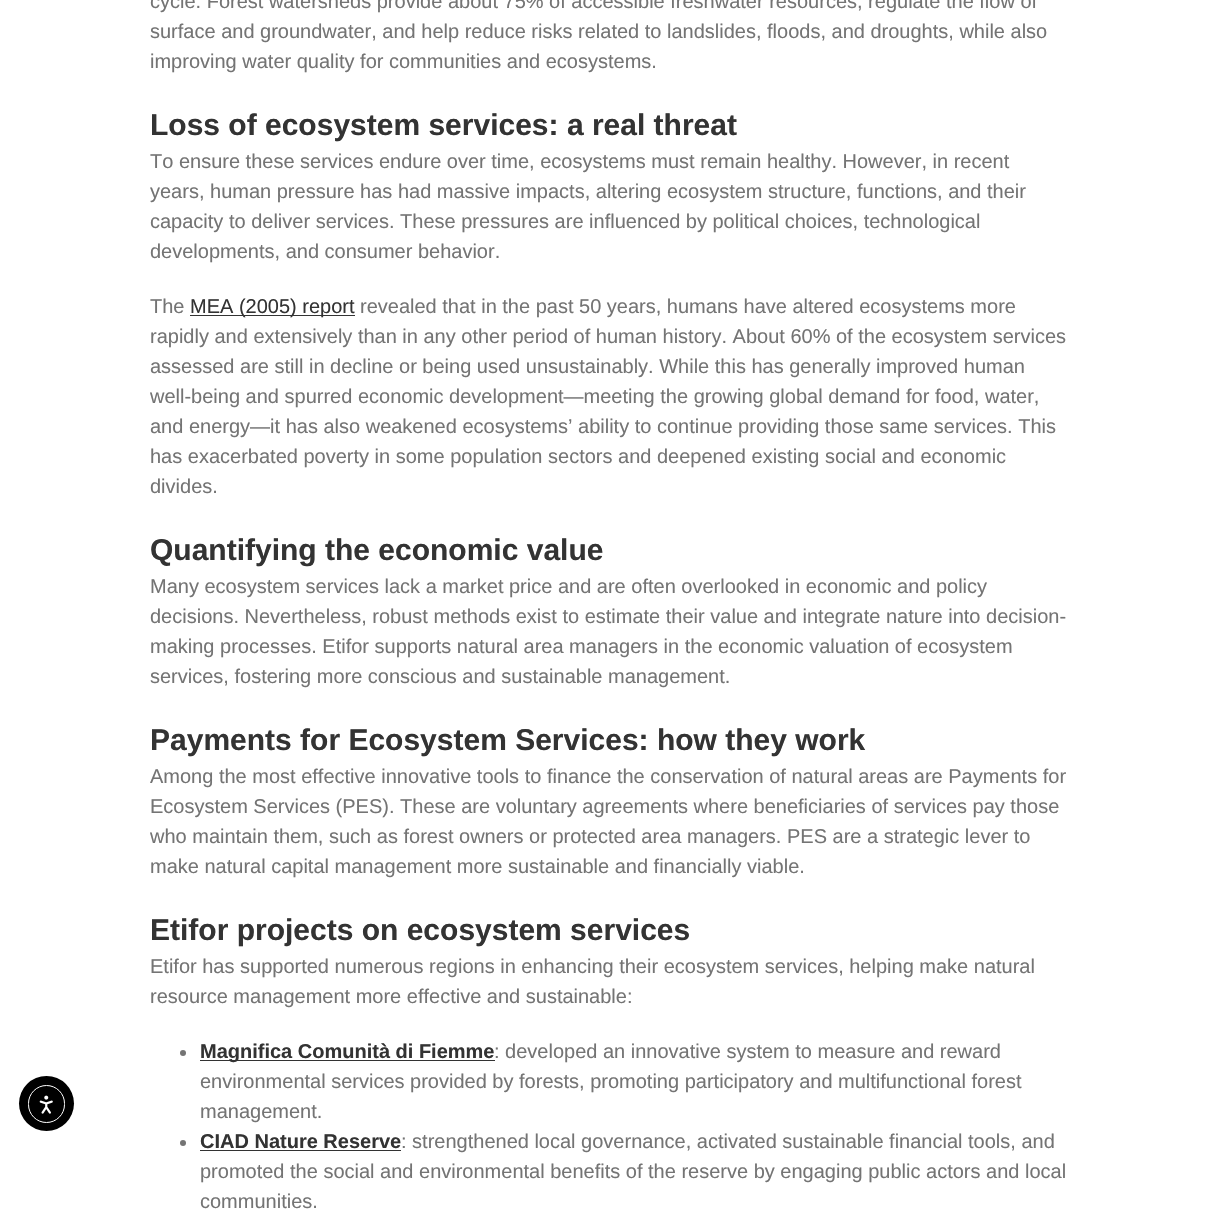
void draw(SkCanvas* canvas) {
    SkPaint paint;
    paint.setAntiAlias(true);
    canvas->clear(0xFFFFFFFF);
    paint.setColor(0xFF000000);
    canvas->drawCircle(46.5f, 1103.5f, 27.5f, paint);
    paint.setStyle(SkPaint::kStroke_Style);
    paint.setStrokeWidth(1);
    paint.setColor(0xFFFFFFFF);
    canvas->drawRoundRect(SkRect::MakeXYWH(28.5f, 1085.5f, 36, 37), 18, 18, paint);
    canvas->drawImageRect(SkImages::DeferredFromEncodedData(SkData::MakeFromFileName("img1.png")), SkRect::MakeXYWH(39, 1095, 14, 19), SkSamplingOptions());
    SkFont font1(fontMgr->matchFamilyStyle("Liberation Sans", SkFontStyle::Normal()), 20);
    font1.setSubpixel(true);
    paint.setStyle(SkPaint::kFill_Style);
    paint.setColor(0xFF747474);
    canvas->drawString("cycle. Forest watersheds provide about 75% of accessible freshwater resources, regulate the flow of", 150, 8, font1, paint);
    canvas->drawString("surface and groundwater, and help reduce risks related to landslides, floods, and droughts, while also", 150, 38, font1, paint);
    canvas->drawString("improving water quality for communities and ecosystems.", 150, 68, font1, paint);
    SkFont font2(fontMgr->matchFamilyStyle("Liberation Sans", SkFontStyle::Bold()), 30);
    font2.setSubpixel(true);
    paint.setColor(0xFF333333);
    canvas->drawString("Loss of ecosystem services: a real threat", 150, 135, font2, paint);
    paint.setColor(0xFF747474);
    canvas->drawString("To ensure these services endure over time, ecosystems must remain healthy. However, in recent", 150, 168, font1, paint);
    canvas->drawString("years, human pressure has had massive impacts, altering ecosystem structure, functions, and their", 150, 198, font1, paint);
    canvas->drawString("capacity to deliver services. These pressures are influenced by political choices, technological", 150, 228, font1, paint);
    canvas->drawString("developments, and consumer behavior.", 150, 258, font1, paint);
    canvas->drawString("The", 150, 313, font1, paint);
    paint.setColor(0xFF333333);
    canvas->drawRect(SkRect::MakeXYWH(190, 315, 165, 1), paint);
    canvas->drawString("MEA (2005) report", 190, 313, font1, paint);
    paint.setColor(0xFF747474);
    canvas->drawString("revealed that in the past 50 years, humans have altered ecosystems more", 360, 313, font1, paint);
    canvas->drawString("rapidly and extensively than in any other period of human history. About 60% of the ecosystem services", 150, 343, font1, paint);
    canvas->drawString("assessed are still in decline or being used unsustainably. While this has generally improved human", 150, 373, font1, paint);
    canvas->drawString("well-being and spurred economic development—meeting the growing global demand for food, water,", 150, 403, font1, paint);
    canvas->drawString("and energy—it has also weakened ecosystems’ ability to continue providing those same services. This", 150, 433, font1, paint);
    canvas->drawString("has exacerbated poverty in some population sectors and deepened existing social and economic", 150, 463, font1, paint);
    canvas->drawString("divides.", 150, 493, font1, paint);
    paint.setColor(0xFF333333);
    canvas->drawString("Quantifying the economic value", 150, 560, font2, paint);
    paint.setColor(0xFF747474);
    canvas->drawString("Many ecosystem services lack a market price and are often overlooked in economic and policy", 150, 593, font1, paint);
    canvas->drawString("decisions. Nevertheless, robust methods exist to estimate their value and integrate nature into decision-", 150, 623, font1, paint);
    canvas->drawString("making processes. Etifor supports natural area managers in the economic valuation of ecosystem", 150, 653, font1, paint);
    canvas->drawString("services, fostering more conscious and sustainable management.", 150, 683, font1, paint);
    paint.setColor(0xFF333333);
    canvas->drawString("Payments for Ecosystem Services: how they work", 150, 750, font2, paint);
    paint.setColor(0xFF747474);
    canvas->drawString("Among the most effective innovative tools to finance the conservation of natural areas are Payments for", 150, 783, font1, paint);
    canvas->drawString("Ecosystem Services (PES). These are voluntary agreements where beneficiaries of services pay those", 150, 813, font1, paint);
    canvas->drawString("who maintain them, such as forest owners or protected area managers. PES are a strategic lever to", 150, 843, font1, paint);
    canvas->drawString("make natural capital management more sustainable and financially viable.", 150, 873, font1, paint);
    paint.setColor(0xFF333333);
    canvas->drawString("Etifor projects on ecosystem services", 150, 940, font2, paint);
    paint.setColor(0xFF747474);
    canvas->drawString("Etifor has supported numerous regions in enhancing their ecosystem services, helping make natural", 150, 973, font1, paint);
    canvas->drawString("resource management more effective and sustainable:", 150, 1003, font1, paint);
    canvas->drawCircle(183, 1053, 3, paint);
    paint.setColor(0xFF333333);
    canvas->drawRect(SkRect::MakeXYWH(200, 1060, 295, 1), paint);
    SkFont font3(fontMgr->matchFamilyStyle("Liberation Sans", SkFontStyle::Bold()), 20);
    font3.setSubpixel(true);
    canvas->drawString("Magnifica Comunità di Fiemme", 200, 1058, font3, paint);
    paint.setColor(0xFF747474);
    canvas->drawString(": developed an innovative system to measure and reward", 494, 1058, font1, paint);
    canvas->drawString("environmental services provided by forests, promoting participatory and multifunctional forest", 200, 1088, font1, paint);
    canvas->drawString("management.", 200, 1118, font1, paint);
    canvas->drawCircle(183, 1143, 3, paint);
    paint.setColor(0xFF333333);
    canvas->drawString("CIAD Nature Reserve", 200, 1148, font3, paint);
    canvas->drawRect(SkRect::MakeXYWH(200, 1150, 201, 1), paint);
    paint.setColor(0xFF747474);
    canvas->drawString(": strengthened local governance, activated sustainable financial tools, and", 401, 1148, font1, paint);
    canvas->drawString("promoted the social and environmental benefits of the reserve by engaging public actors and local", 200, 1178, font1, paint);
    canvas->drawString("communities.", 200, 1208, font1, paint);
}
